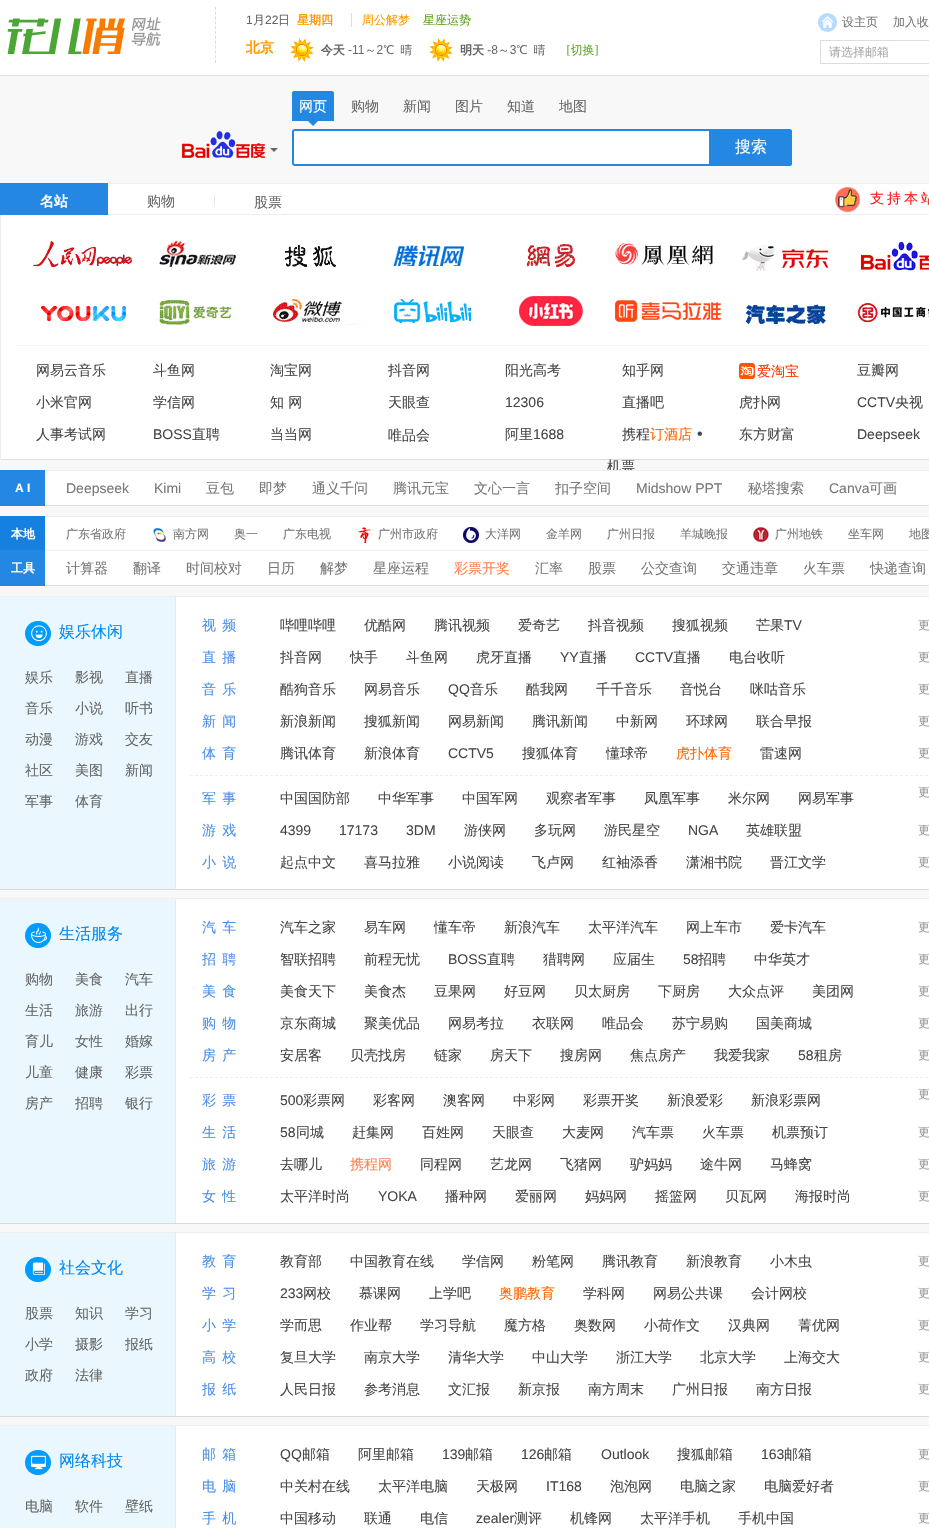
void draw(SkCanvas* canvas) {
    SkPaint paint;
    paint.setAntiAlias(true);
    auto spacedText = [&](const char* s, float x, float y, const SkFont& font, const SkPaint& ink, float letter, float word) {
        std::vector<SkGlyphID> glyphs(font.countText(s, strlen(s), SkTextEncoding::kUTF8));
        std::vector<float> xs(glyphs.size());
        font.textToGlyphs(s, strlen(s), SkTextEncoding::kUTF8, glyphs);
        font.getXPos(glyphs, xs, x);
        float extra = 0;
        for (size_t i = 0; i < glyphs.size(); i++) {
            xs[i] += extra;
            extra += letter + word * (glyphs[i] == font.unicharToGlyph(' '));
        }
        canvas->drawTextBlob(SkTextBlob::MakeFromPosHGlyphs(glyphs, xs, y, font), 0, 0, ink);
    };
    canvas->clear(0xFFF8F8F8);
    paint.setColor(0xFFFFFFFF);
    canvas->drawRect(SkRect::MakeXYWH(0, 0, 929, 75), paint);
    paint.setColor(0xFFDDDDDD);
    canvas->drawRect(SkRect::MakeXYWH(0, 75, 929, 1), paint);
    canvas->drawImageRect(SkImages::DeferredFromEncodedData(SkData::MakeFromFileName("img1.png")), SkRect::MakeXYWH(7, 17, 154, 37), SkSamplingOptions());
    paint.setStyle(SkPaint::kStroke_Style);
    paint.setStrokeWidth(1);
    paint.setPathEffect(SkDashPathEffect::Make({{3, 1.82f}}, 0));
    canvas->drawPath(SkPathBuilder().moveTo(215.5f, 7).lineTo(215.5f, 63).detach(), paint);
    paint.setPathEffect(nullptr);
    SkFont font1(fontMgr->matchFamilyStyle("Liberation Sans", SkFontStyle::Normal()), 12);
    font1.setSubpixel(true);
    paint.setStyle(SkPaint::kFill_Style);
    paint.setColor(0xFF666666);
    canvas->drawString("1", 246, 24, font1, paint);
    SkFont font2(fontMgr->matchFamilyStyle("WenQuanYi Zen Hei", SkFontStyle(500, SkFontStyle::kNormal_Width, SkFontStyle::kUpright_Slant)), 12);
    font2.setSubpixel(true);
    canvas->drawString("月", 253, 24, font2, paint);
    canvas->drawString("22", 265, 24, font1, paint);
    canvas->drawString("日", 278, 24, font2, paint);
    SkFont font3(fontMgr->matchFamilyStyle("WenQuanYi Zen Hei", SkFontStyle::Bold()), 12);
    font3.setSubpixel(true);
    paint.setColor(0xFFFF9900);
    canvas->drawString("星期四", 297, 24, font3, paint);
    paint.setColor(0xFFDDDDDD);
    canvas->drawRect(SkRect::MakeXYWH(351, 13, 1, 14), paint);
    paint.setColor(0xFFFF9900);
    canvas->drawString("周公解梦", 362, 24, font2, paint);
    paint.setColor(0xFF58A119);
    canvas->drawString("星座运势", 423, 24, font2, paint);
    canvas->drawImageRect(SkImages::DeferredFromEncodedData(SkData::MakeFromFileName("img2.png")), SkRect::MakeXYWH(246, 38, 352, 24), SkSamplingOptions());
    paint.setColor(0xFFB5DBFF);
    canvas->drawCircle(827.5f, 22.5f, 9.5f, paint);
    canvas->drawImageRect(SkImages::DeferredFromEncodedData(SkData::MakeFromFileName("img3.png")), SkRect::MakeXYWH(821, 16, 13, 12), SkSamplingOptions());
    paint.setColor(0xFF777777);
    canvas->drawString("设主页", 842, 26, font2, paint);
    canvas->drawString("加入收", 893, 26, font2, paint);
    paint.setStyle(SkPaint::kStroke_Style);
    paint.setColor(0xFFDDDDDD);
    canvas->drawRect(SkRect::MakeXYWH(820.5f, 40.5f, 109, 23), paint);
    paint.setStyle(SkPaint::kFill_Style);
    paint.setColor(0xFFAAAAAA);
    canvas->drawString("请选择邮箱", 829, 56, font2, paint);
    canvas->drawImageRect(SkImages::DeferredFromEncodedData(SkData::MakeFromFileName("img4.png")), SkRect::MakeXYWH(181, 131, 85, 27), SkSamplingOptions());
    paint.setColor(0xFF666666);
    canvas->drawPath(SkPathBuilder().moveTo(270, 148).lineTo(278, 148).lineTo(274, 152).close().detach(), paint);
    paint.setColor(0xFF2487E1);
    canvas->drawPath(SkPathBuilder().moveTo(294, 91).lineTo(332, 91).cubicTo(333, 91, 334, 92, 334, 93).lineTo(334, 121).lineTo(292, 121).lineTo(292, 93).cubicTo(292, 92, 293, 91, 294, 91).close().detach(), paint);
    SkFont font4(fontMgr->matchFamilyStyle("WenQuanYi Zen Hei", SkFontStyle(500, SkFontStyle::kNormal_Width, SkFontStyle::kUpright_Slant)), 14);
    font4.setSubpixel(true);
    paint.setColor(0xFFFFFFFF);
    canvas->drawString("网页", 299, 111, font4, paint);
    paint.setColor(0xFF2487E1);
    canvas->drawPath(SkPathBuilder().moveTo(308, 121).lineTo(318, 121).lineTo(313, 126).close().detach(), paint);
    paint.setColor(0xFF666666);
    canvas->drawString("购物", 351, 111, font4, paint);
    canvas->drawString("新闻", 403, 111, font4, paint);
    canvas->drawString("图片", 455, 111, font4, paint);
    canvas->drawString("知道", 507, 111, font4, paint);
    canvas->drawString("地图", 559, 111, font4, paint);
    paint.setColor(0xFFFFFFFF);
    canvas->drawPath(SkPathBuilder().moveTo(295, 130).lineTo(711, 130).lineTo(711, 165).lineTo(295, 165).cubicTo(294, 165, 293, 164, 293, 163).lineTo(293, 132).cubicTo(293, 131, 294, 130, 295, 130).close().detach(), paint);
    paint.setStyle(SkPaint::kStroke_Style);
    paint.setStrokeWidth(2);
    paint.setColor(0xFF2487E1);
    canvas->drawPath(SkPathBuilder().moveTo(295, 130).lineTo(711, 130).lineTo(711, 165).lineTo(295, 165).cubicTo(294, 165, 293, 164, 293, 163).lineTo(293, 132).cubicTo(293, 131, 294, 130, 295, 130).close().detach(), paint);
    paint.setStyle(SkPaint::kFill_Style);
    canvas->drawPath(SkPathBuilder().moveTo(709, 129).lineTo(790, 129).cubicTo(791, 129, 792, 130, 792, 131).lineTo(792, 164).cubicTo(792, 165, 791, 166, 790, 166).lineTo(709, 166).close().detach(), paint);
    SkFont font5(fontMgr->matchFamilyStyle("WenQuanYi Zen Hei", SkFontStyle(500, SkFontStyle::kNormal_Width, SkFontStyle::kUpright_Slant)), 16);
    font5.setSubpixel(true);
    paint.setColor(0xFFFFFFFF);
    canvas->drawString("搜索", 735, 152, font5, paint);
    canvas->drawRect(SkRect::MakeXYWH(108, 184, 821, 30), paint);
    paint.setStyle(SkPaint::kStroke_Style);
    paint.setStrokeWidth(1);
    paint.setColor(0xFFEEEEEE);
    canvas->drawRect(SkRect::MakeXYWH(0.5f, 183.5f, 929, 31), paint);
    paint.setStyle(SkPaint::kFill_Style);
    paint.setColor(0xFF2487E1);
    canvas->drawRect(SkRect::MakeXYWH(0, 183, 108, 32), paint);
    SkFont font6(fontMgr->matchFamilyStyle("WenQuanYi Zen Hei", SkFontStyle::Bold()), 14);
    font6.setSubpixel(true);
    paint.setColor(0xFFFFFFFF);
    canvas->drawString("名站", 40, 206, font6, paint);
    paint.setColor(0xFF666666);
    canvas->drawString("购物", 147, 206, font4, paint);
    paint.setColor(0xFFE7E7E7);
    canvas->drawRect(SkRect::MakeXYWH(214, 195, 1, 11), paint);
    paint.setColor(0xFF666666);
    canvas->drawString("股票", 254, 207, font4, paint);
    canvas->drawImageRect(SkImages::DeferredFromEncodedData(SkData::MakeFromFileName("img5.png")), SkRect::MakeXYWH(835, 187, 25, 25), SkSamplingOptions());
    paint.setColor(0xFFFF1A1A);
    spacedText("支持本站", 870, 203, font4, paint, 3, 0);
    paint.setColor(0xFFFFFFFF);
    canvas->drawRect(SkRect::MakeXYWH(1, 215, 928, 244), paint);
    paint.setColor(0xFFDDDDDD);
    canvas->drawRect(SkRect::MakeXYWH(0, 459, 929, 1), paint);
    paint.setColor(0xFFEEEEEE);
    canvas->drawRect(SkRect::MakeXYWH(0, 215, 1, 245), paint);
    canvas->drawImageRect(SkImages::DeferredFromEncodedData(SkData::MakeFromFileName("img6.png")), SkRect::MakeXYWH(33, 241, 99, 26), SkSamplingOptions());
    canvas->drawImageRect(SkImages::DeferredFromEncodedData(SkData::MakeFromFileName("img7.png")), SkRect::MakeXYWH(159, 239, 78, 28), SkSamplingOptions());
    canvas->drawImageRect(SkImages::DeferredFromEncodedData(SkData::MakeFromFileName("img8.png")), SkRect::MakeXYWH(284, 245, 52, 22), SkSamplingOptions());
    canvas->drawImageRect(SkImages::DeferredFromEncodedData(SkData::MakeFromFileName("img9.png")), SkRect::MakeXYWH(393, 245, 71, 21), SkSamplingOptions());
    canvas->drawImageRect(SkImages::DeferredFromEncodedData(SkData::MakeFromFileName("img10.png")), SkRect::MakeXYWH(526, 241, 49, 27), SkSamplingOptions());
    canvas->drawImageRect(SkImages::DeferredFromEncodedData(SkData::MakeFromFileName("img11.png")), SkRect::MakeXYWH(615, 242, 98, 24), SkSamplingOptions());
    canvas->drawImageRect(SkImages::DeferredFromEncodedData(SkData::MakeFromFileName("img12.png")), SkRect::MakeXYWH(742, 245, 87, 26), SkSamplingOptions());
    canvas->drawImageRect(SkImages::DeferredFromEncodedData(SkData::MakeFromFileName("img13.png")), SkRect::MakeXYWH(860, 241, 69, 30), SkSamplingOptions());
    canvas->drawImageRect(SkImages::DeferredFromEncodedData(SkData::MakeFromFileName("img14.png")), SkRect::MakeXYWH(41, 306, 85, 15), SkSamplingOptions());
    canvas->drawImageRect(SkImages::DeferredFromEncodedData(SkData::MakeFromFileName("img15.png")), SkRect::MakeXYWH(156, 300, 76, 28), SkSamplingOptions());
    canvas->drawImageRect(SkImages::DeferredFromEncodedData(SkData::MakeFromFileName("img16.png")), SkRect::MakeXYWH(273, 299, 96, 26), SkSamplingOptions());
    canvas->drawImageRect(SkImages::DeferredFromEncodedData(SkData::MakeFromFileName("img17.png")), SkRect::MakeXYWH(394, 299, 77, 24), SkSamplingOptions());
    canvas->drawImageRect(SkImages::DeferredFromEncodedData(SkData::MakeFromFileName("img18.png")), SkRect::MakeXYWH(519, 296, 64, 30), SkSamplingOptions());
    canvas->drawImageRect(SkImages::DeferredFromEncodedData(SkData::MakeFromFileName("img19.png")), SkRect::MakeXYWH(615, 300, 106, 22), SkSamplingOptions());
    canvas->drawImageRect(SkImages::DeferredFromEncodedData(SkData::MakeFromFileName("img20.png")), SkRect::MakeXYWH(745, 304, 81, 22), SkSamplingOptions());
    canvas->drawImageRect(SkImages::DeferredFromEncodedData(SkData::MakeFromFileName("img21.png")), SkRect::MakeXYWH(856, 303, 73, 20), SkSamplingOptions());
    paint.setStyle(SkPaint::kStroke_Style);
    paint.setPathEffect(SkDashPathEffect::Make({{1, 1}}, 0));
    canvas->drawPath(SkPathBuilder().moveTo(16, 345.5f).lineTo(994, 345.5f).detach(), paint);
    paint.setPathEffect(nullptr);
    paint.setStyle(SkPaint::kFill_Style);
    paint.setColor(0xFF464646);
    canvas->drawString("网易云音乐", 36, 375, font4, paint);
    canvas->drawString("斗鱼网", 153, 375, font4, paint);
    canvas->drawString("淘宝网", 270, 375, font4, paint);
    canvas->drawString("抖音网", 388, 375, font4, paint);
    canvas->drawString("阳光高考", 505, 375, font4, paint);
    canvas->drawString("知乎网", 622, 375, font4, paint);
    canvas->drawImageRect(SkImages::DeferredFromEncodedData(SkData::MakeFromFileName("img22.png")), SkRect::MakeXYWH(739, 363, 16, 16), SkSamplingOptions());
    paint.setColor(0xFFFF3300);
    canvas->drawString("爱淘宝", 757, 376, font4, paint);
    paint.setColor(0xFF464646);
    canvas->drawString("豆瓣网", 857, 375, font4, paint);
    canvas->drawString("小米官网", 36, 407, font4, paint);
    canvas->drawString("学信网", 153, 407, font4, paint);
    canvas->drawString("知 网", 270, 407, font4, paint);
    canvas->drawString("天眼查", 388, 407, font4, paint);
    SkFont font7(fontMgr->matchFamilyStyle("Liberation Sans", SkFontStyle::Normal()), 14);
    font7.setSubpixel(true);
    canvas->drawString("12306", 505, 407, font7, paint);
    canvas->drawString("直播吧", 622, 407, font4, paint);
    canvas->drawString("虎扑网", 739, 407, font4, paint);
    canvas->drawString("CCTV", 857, 407, font7, paint);
    canvas->drawString("央视", 895, 407, font4, paint);
    canvas->drawString("人事考试网", 36, 439, font4, paint);
    canvas->drawString("BOSS", 153, 439, font7, paint);
    canvas->drawString("直聘", 192, 439, font4, paint);
    canvas->drawString("当当网", 270, 439, font4, paint);
    canvas->drawString("唯品会", 388, 440, font4, paint);
    canvas->drawString("阿里", 505, 439, font4, paint);
    canvas->drawString("1688", 533, 439, font7, paint);
    canvas->drawString("携程", 622, 439, font4, paint);
    paint.setColor(0xFFFF6600);
    canvas->drawString("订酒店", 650, 439, font4, paint);
    SkFont font8(fontMgr->matchFamilyStyle("Liberation Sans", SkFontStyle::Normal()), 16);
    font8.setSubpixel(true);
    paint.setColor(0xFF464646);
    canvas->drawString("•", 697, 439, font8, paint);
    canvas->drawString("机票", 607, 471, font4, paint);
    canvas->drawString("东方财富", 739, 439, font4, paint);
    canvas->drawString("Deepseek", 857, 439, font7, paint);
    paint.setColor(0xFFFFFFFF);
    canvas->drawRect(SkRect::MakeXYWH(45, 471, 884, 34), paint);
    paint.setColor(0xFFEEEEEE);
    canvas->drawRect(SkRect::MakeXYWH(45, 470, 884, 1), paint);
    paint.setColor(0xFFDDDDDD);
    canvas->drawRect(SkRect::MakeXYWH(45, 505, 884, 1), paint);
    paint.setColor(0xFF2487E1);
    canvas->drawRect(SkRect::MakeXYWH(0, 470, 45, 36), paint);
    SkFont font9(fontMgr->matchFamilyStyle("Liberation Sans", SkFontStyle::Bold()), 12);
    font9.setSubpixel(true);
    paint.setColor(0xFFFFFFFF);
    canvas->drawString("A I", 15, 492, font9, paint);
    paint.setColor(0xFF777777);
    canvas->drawString("Deepseek", 66, 493, font7, paint);
    canvas->drawString("Kimi", 154, 493, font7, paint);
    canvas->drawString("豆包", 206, 493, font4, paint);
    canvas->drawString("即梦", 259, 493, font4, paint);
    canvas->drawString("通义千问", 312, 493, font4, paint);
    canvas->drawString("腾讯元宝", 393, 493, font4, paint);
    canvas->drawString("文心一言", 474, 493, font4, paint);
    canvas->drawString("扣子空间", 555, 493, font4, paint);
    canvas->drawString("Midshow PPT", 636, 493, font7, paint);
    canvas->drawString("秘塔搜索", 748, 493, font4, paint);
    canvas->drawString("Canva", 829, 493, font7, paint);
    canvas->drawString("可画", 869, 493, font4, paint);
    paint.setColor(0xFFFFFFFF);
    canvas->drawRect(SkRect::MakeXYWH(45, 517, 884, 33), paint);
    paint.setColor(0xFFEEEEEE);
    canvas->drawRect(SkRect::MakeXYWH(45, 516, 884, 1), paint);
    paint.setColor(0xFF1680E0);
    canvas->drawRect(SkRect::MakeXYWH(0, 516, 45, 34), paint);
    paint.setColor(0xFFFFFFFF);
    canvas->drawString("本地", 11, 538, font3, paint);
    paint.setColor(0xFF777777);
    canvas->drawString("广东省政府", 66, 538, font2, paint);
    canvas->drawImageRect(SkImages::DeferredFromEncodedData(SkData::MakeFromFileName("img23.png")), SkRect::MakeXYWH(153, 527, 13, 15), SkSamplingOptions());
    canvas->drawString("南方网", 173, 538, font2, paint);
    canvas->drawString("奥一", 234, 538, font2, paint);
    canvas->drawString("广东电视", 283, 538, font2, paint);
    canvas->drawImageRect(SkImages::DeferredFromEncodedData(SkData::MakeFromFileName("img24.png")), SkRect::MakeXYWH(358, 527, 13, 16), SkSamplingOptions());
    canvas->drawString("广州市政府", 378, 538, font2, paint);
    canvas->drawImageRect(SkImages::DeferredFromEncodedData(SkData::MakeFromFileName("img25.png")), SkRect::MakeXYWH(463, 527, 16, 16), SkSamplingOptions());
    canvas->drawString("大洋网", 485, 538, font2, paint);
    canvas->drawString("金羊网", 546, 538, font2, paint);
    canvas->drawString("广州日报", 607, 538, font2, paint);
    canvas->drawString("羊城晚报", 680, 538, font2, paint);
    canvas->drawImageRect(SkImages::DeferredFromEncodedData(SkData::MakeFromFileName("img26.png")), SkRect::MakeXYWH(753, 527, 16, 16), SkSamplingOptions());
    canvas->drawString("广州地铁", 775, 538, font2, paint);
    canvas->drawString("坐车网", 848, 538, font2, paint);
    canvas->drawString("地图", 909, 538, font2, paint);
    paint.setColor(0xFFFFFFFF);
    canvas->drawRect(SkRect::MakeXYWH(45, 551, 884, 34), paint);
    paint.setColor(0xFFEEEEEE);
    canvas->drawRect(SkRect::MakeXYWH(45, 550, 884, 1), paint);
    paint.setColor(0xFFDDDDDD);
    canvas->drawRect(SkRect::MakeXYWH(45, 585, 884, 1), paint);
    paint.setColor(0xFF2487E1);
    canvas->drawRect(SkRect::MakeXYWH(0, 550, 45, 36), paint);
    paint.setColor(0xFFFFFFFF);
    canvas->drawString("工具", 11, 572, font3, paint);
    paint.setColor(0xFF777777);
    canvas->drawString("计算器", 66, 573, font4, paint);
    canvas->drawString("翻译", 133, 573, font4, paint);
    canvas->drawString("时间校对", 186, 573, font4, paint);
    canvas->drawString("日历", 267, 573, font4, paint);
    canvas->drawString("解梦", 320, 573, font4, paint);
    canvas->drawString("星座运程", 373, 573, font4, paint);
    paint.setColor(0xFFFF8454);
    canvas->drawString("彩票开奖", 454, 573, font4, paint);
    paint.setColor(0xFF777777);
    canvas->drawString("汇率", 535, 573, font4, paint);
    canvas->drawString("股票", 588, 573, font4, paint);
    canvas->drawString("公交查询", 641, 573, font4, paint);
    canvas->drawString("交通违章", 722, 573, font4, paint);
    canvas->drawString("火车票", 803, 573, font4, paint);
    canvas->drawString("快递查询", 870, 573, font4, paint);
    paint.setColor(0xFFFFFFFF);
    canvas->drawRect(SkRect::MakeXYWH(176, 597, 753, 292), paint);
    paint.setColor(0xFFEEEEEE);
    canvas->drawRect(SkRect::MakeXYWH(0, 596, 929, 1), paint);
    paint.setColor(0xFFDADADA);
    canvas->drawRect(SkRect::MakeXYWH(0, 889, 929, 1), paint);
    paint.setColor(0xFFEAF7FF);
    canvas->drawRect(SkRect::MakeXYWH(0, 597, 175, 292), paint);
    paint.setColor(0xFFDEEDFA);
    canvas->drawRect(SkRect::MakeXYWH(175, 597, 1, 292), paint);
    paint.setColor(0xFF019CFF);
    canvas->drawRoundRect(SkRect::MakeXYWH(25, 621, 26, 25), 12.5f, 12.5f, paint);
    canvas->drawImageRect(SkImages::DeferredFromEncodedData(SkData::MakeFromFileName("img27.png")), SkRect::MakeXYWH(31, 625, 16, 17), SkSamplingOptions());
    paint.setColor(0xFF0089F2);
    canvas->drawString("娱乐休闲", 59, 637, font5, paint);
    paint.setColor(0xFF666666);
    canvas->drawString("娱乐", 25, 682, font4, paint);
    canvas->drawString("影视", 75, 682, font4, paint);
    canvas->drawString("直播", 125, 682, font4, paint);
    canvas->drawString("音乐", 25, 713, font4, paint);
    canvas->drawString("小说", 75, 713, font4, paint);
    canvas->drawString("听书", 125, 713, font4, paint);
    canvas->drawString("动漫", 25, 744, font4, paint);
    canvas->drawString("游戏", 75, 744, font4, paint);
    canvas->drawString("交友", 125, 744, font4, paint);
    canvas->drawString("社区", 25, 775, font4, paint);
    canvas->drawString("美图", 75, 775, font4, paint);
    canvas->drawString("新闻", 125, 775, font4, paint);
    canvas->drawString("军事", 25, 806, font4, paint);
    canvas->drawString("体育", 75, 806, font4, paint);
    paint.setColor(0xFF4C8EE7);
    spacedText("视 频", 202, 630, font4, paint, 1, 0);
    paint.setColor(0xFF464646);
    canvas->drawString("哔哩哔哩", 280, 630, font4, paint);
    canvas->drawString("优酷网", 364, 630, font4, paint);
    canvas->drawString("腾讯视频", 434, 630, font4, paint);
    canvas->drawString("爱奇艺", 518, 630, font4, paint);
    canvas->drawString("抖音视频", 588, 630, font4, paint);
    canvas->drawString("搜狐视频", 672, 630, font4, paint);
    canvas->drawString("芒果", 756, 630, font4, paint);
    canvas->drawString("TV", 784, 630, font7, paint);
    paint.setColor(0xFF999999);
    canvas->drawString("更", 918, 629, font2, paint);
    paint.setColor(0xFF4C8EE7);
    spacedText("直 播", 202, 662, font4, paint, 1, 0);
    paint.setColor(0xFF464646);
    canvas->drawString("抖音网", 280, 662, font4, paint);
    canvas->drawString("快手", 350, 662, font4, paint);
    canvas->drawString("斗鱼网", 406, 662, font4, paint);
    canvas->drawString("虎牙直播", 476, 662, font4, paint);
    canvas->drawString("YY", 560, 662, font7, paint);
    canvas->drawString("直播", 579, 662, font4, paint);
    canvas->drawString("CCTV", 635, 662, font7, paint);
    canvas->drawString("直播", 673, 662, font4, paint);
    canvas->drawString("电台收听", 729, 662, font4, paint);
    paint.setColor(0xFF999999);
    canvas->drawString("更", 918, 661, font2, paint);
    paint.setColor(0xFF4C8EE7);
    spacedText("音 乐", 202, 694, font4, paint, 1, 0);
    paint.setColor(0xFF464646);
    canvas->drawString("酷狗音乐", 280, 694, font4, paint);
    canvas->drawString("网易音乐", 364, 694, font4, paint);
    canvas->drawString("QQ", 448, 694, font7, paint);
    canvas->drawString("音乐", 470, 694, font4, paint);
    canvas->drawString("酷我网", 526, 694, font4, paint);
    canvas->drawString("千千音乐", 596, 694, font4, paint);
    canvas->drawString("音悦台", 680, 694, font4, paint);
    canvas->drawString("咪咕音乐", 750, 694, font4, paint);
    paint.setColor(0xFF999999);
    canvas->drawString("更", 918, 693, font2, paint);
    paint.setColor(0xFF4C8EE7);
    spacedText("新 闻", 202, 726, font4, paint, 1, 0);
    paint.setColor(0xFF464646);
    canvas->drawString("新浪新闻", 280, 726, font4, paint);
    canvas->drawString("搜狐新闻", 364, 726, font4, paint);
    canvas->drawString("网易新闻", 448, 726, font4, paint);
    canvas->drawString("腾讯新闻", 532, 726, font4, paint);
    canvas->drawString("中新网", 616, 726, font4, paint);
    canvas->drawString("环球网", 686, 726, font4, paint);
    canvas->drawString("联合早报", 756, 726, font4, paint);
    paint.setColor(0xFF999999);
    canvas->drawString("更", 918, 725, font2, paint);
    paint.setColor(0xFF4C8EE7);
    spacedText("体 育", 202, 758, font4, paint, 1, 0);
    paint.setColor(0xFF464646);
    canvas->drawString("腾讯体育", 280, 758, font4, paint);
    canvas->drawString("新浪体育", 364, 758, font4, paint);
    canvas->drawString("CCTV5", 448, 758, font7, paint);
    canvas->drawString("搜狐体育", 522, 758, font4, paint);
    canvas->drawString("懂球帝", 606, 758, font4, paint);
    paint.setColor(0xFFFF6600);
    canvas->drawString("虎扑体育", 676, 758, font4, paint);
    paint.setColor(0xFF464646);
    canvas->drawString("雷速网", 760, 758, font4, paint);
    paint.setColor(0xFF999999);
    canvas->drawString("更", 918, 757, font2, paint);
    paint.setStyle(SkPaint::kStroke_Style);
    paint.setColor(0xFFEEEEEE);
    paint.setPathEffect(SkDashPathEffect::Make({{3, 2}}, 0));
    canvas->drawPath(SkPathBuilder().moveTo(190, 775.5f).lineTo(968, 775.5f).detach(), paint);
    paint.setPathEffect(nullptr);
    paint.setStyle(SkPaint::kFill_Style);
    paint.setColor(0xFF4C8EE7);
    spacedText("军 事", 202, 803, font4, paint, 1, 0);
    paint.setColor(0xFF464646);
    canvas->drawString("中国国防部", 280, 803, font4, paint);
    canvas->drawString("中华军事", 378, 803, font4, paint);
    canvas->drawString("中国军网", 462, 803, font4, paint);
    canvas->drawString("观察者军事", 546, 803, font4, paint);
    canvas->drawString("凤凰军事", 644, 803, font4, paint);
    canvas->drawString("米尔网", 728, 803, font4, paint);
    canvas->drawString("网易军事", 798, 803, font4, paint);
    paint.setColor(0xFF999999);
    canvas->drawString("更", 918, 796, font2, paint);
    paint.setColor(0xFF4C8EE7);
    spacedText("游 戏", 202, 835, font4, paint, 1, 0);
    paint.setColor(0xFF464646);
    canvas->drawString("4399", 280, 835, font7, paint);
    canvas->drawString("17173", 339, 835, font7, paint);
    canvas->drawString("3DM", 406, 835, font7, paint);
    canvas->drawString("游侠网", 464, 835, font4, paint);
    canvas->drawString("多玩网", 534, 835, font4, paint);
    canvas->drawString("游民星空", 604, 835, font4, paint);
    canvas->drawString("NGA", 688, 835, font7, paint);
    canvas->drawString("英雄联盟", 746, 835, font4, paint);
    paint.setColor(0xFF999999);
    canvas->drawString("更", 918, 834, font2, paint);
    paint.setColor(0xFF4C8EE7);
    spacedText("小 说", 202, 867, font4, paint, 1, 0);
    paint.setColor(0xFF464646);
    canvas->drawString("起点中文", 280, 867, font4, paint);
    canvas->drawString("喜马拉雅", 364, 867, font4, paint);
    canvas->drawString("小说阅读", 448, 867, font4, paint);
    canvas->drawString("飞卢网", 532, 867, font4, paint);
    canvas->drawString("红袖添香", 602, 867, font4, paint);
    canvas->drawString("潇湘书院", 686, 867, font4, paint);
    canvas->drawString("晋江文学", 770, 867, font4, paint);
    paint.setColor(0xFF999999);
    canvas->drawString("更", 918, 866, font2, paint);
    paint.setColor(0xFFFFFFFF);
    canvas->drawRect(SkRect::MakeXYWH(176, 899, 753, 324), paint);
    paint.setColor(0xFFEEEEEE);
    canvas->drawRect(SkRect::MakeXYWH(0, 898, 929, 1), paint);
    paint.setColor(0xFFDADADA);
    canvas->drawRect(SkRect::MakeXYWH(0, 1223, 929, 1), paint);
    paint.setColor(0xFFEAF7FF);
    canvas->drawRect(SkRect::MakeXYWH(0, 899, 175, 324), paint);
    paint.setColor(0xFFDEEDFA);
    canvas->drawRect(SkRect::MakeXYWH(175, 899, 1, 324), paint);
    paint.setColor(0xFF019CFF);
    canvas->drawRoundRect(SkRect::MakeXYWH(25, 923, 26, 25), 12.5f, 12.5f, paint);
    canvas->drawImageRect(SkImages::DeferredFromEncodedData(SkData::MakeFromFileName("img28.png")), SkRect::MakeXYWH(31, 927, 16, 16), SkSamplingOptions());
    paint.setColor(0xFF0089F2);
    canvas->drawString("生活服务", 59, 939, font5, paint);
    paint.setColor(0xFF666666);
    canvas->drawString("购物", 25, 984, font4, paint);
    canvas->drawString("美食", 75, 984, font4, paint);
    canvas->drawString("汽车", 125, 984, font4, paint);
    canvas->drawString("生活", 25, 1015, font4, paint);
    canvas->drawString("旅游", 75, 1015, font4, paint);
    canvas->drawString("出行", 125, 1015, font4, paint);
    canvas->drawString("育儿", 25, 1046, font4, paint);
    canvas->drawString("女性", 75, 1046, font4, paint);
    canvas->drawString("婚嫁", 125, 1046, font4, paint);
    canvas->drawString("儿童", 25, 1077, font4, paint);
    canvas->drawString("健康", 75, 1077, font4, paint);
    canvas->drawString("彩票", 125, 1077, font4, paint);
    canvas->drawString("房产", 25, 1108, font4, paint);
    canvas->drawString("招聘", 75, 1108, font4, paint);
    canvas->drawString("银行", 125, 1108, font4, paint);
    paint.setColor(0xFF4C8EE7);
    spacedText("汽 车", 202, 932, font4, paint, 1, 0);
    paint.setColor(0xFF464646);
    canvas->drawString("汽车之家", 280, 932, font4, paint);
    canvas->drawString("易车网", 364, 932, font4, paint);
    canvas->drawString("懂车帝", 434, 932, font4, paint);
    canvas->drawString("新浪汽车", 504, 932, font4, paint);
    canvas->drawString("太平洋汽车", 588, 932, font4, paint);
    canvas->drawString("网上车市", 686, 932, font4, paint);
    canvas->drawString("爱卡汽车", 770, 932, font4, paint);
    paint.setColor(0xFF999999);
    canvas->drawString("更", 918, 931, font2, paint);
    paint.setColor(0xFF4C8EE7);
    spacedText("招 聘", 202, 964, font4, paint, 1, 0);
    paint.setColor(0xFF464646);
    canvas->drawString("智联招聘", 280, 964, font4, paint);
    canvas->drawString("前程无忧", 364, 964, font4, paint);
    canvas->drawString("BOSS", 448, 964, font7, paint);
    canvas->drawString("直聘", 487, 964, font4, paint);
    canvas->drawString("猎聘网", 543, 964, font4, paint);
    canvas->drawString("应届生", 613, 964, font4, paint);
    canvas->drawString("58", 683, 964, font7, paint);
    canvas->drawString("招聘", 698, 964, font4, paint);
    canvas->drawString("中华英才", 754, 964, font4, paint);
    paint.setColor(0xFF999999);
    canvas->drawString("更", 918, 963, font2, paint);
    paint.setColor(0xFF4C8EE7);
    spacedText("美 食", 202, 996, font4, paint, 1, 0);
    paint.setColor(0xFF464646);
    canvas->drawString("美食天下", 280, 996, font4, paint);
    canvas->drawString("美食杰", 364, 996, font4, paint);
    canvas->drawString("豆果网", 434, 996, font4, paint);
    canvas->drawString("好豆网", 504, 996, font4, paint);
    canvas->drawString("贝太厨房", 574, 996, font4, paint);
    canvas->drawString("下厨房", 658, 996, font4, paint);
    canvas->drawString("大众点评", 728, 996, font4, paint);
    canvas->drawString("美团网", 812, 996, font4, paint);
    paint.setColor(0xFF999999);
    canvas->drawString("更", 918, 995, font2, paint);
    paint.setColor(0xFF4C8EE7);
    spacedText("购 物", 202, 1028, font4, paint, 1, 0);
    paint.setColor(0xFF464646);
    canvas->drawString("京东商城", 280, 1028, font4, paint);
    canvas->drawString("聚美优品", 364, 1028, font4, paint);
    canvas->drawString("网易考拉", 448, 1028, font4, paint);
    canvas->drawString("衣联网", 532, 1028, font4, paint);
    canvas->drawString("唯品会", 602, 1028, font4, paint);
    canvas->drawString("苏宁易购", 672, 1028, font4, paint);
    canvas->drawString("国美商城", 756, 1028, font4, paint);
    paint.setColor(0xFF999999);
    canvas->drawString("更", 918, 1027, font2, paint);
    paint.setColor(0xFF4C8EE7);
    spacedText("房 产", 202, 1060, font4, paint, 1, 0);
    paint.setColor(0xFF464646);
    canvas->drawString("安居客", 280, 1060, font4, paint);
    canvas->drawString("贝壳找房", 350, 1060, font4, paint);
    canvas->drawString("链家", 434, 1060, font4, paint);
    canvas->drawString("房天下", 490, 1060, font4, paint);
    canvas->drawString("搜房网", 560, 1060, font4, paint);
    canvas->drawString("焦点房产", 630, 1060, font4, paint);
    canvas->drawString("我爱我家", 714, 1060, font4, paint);
    canvas->drawString("58", 798, 1060, font7, paint);
    canvas->drawString("租房", 814, 1060, font4, paint);
    paint.setColor(0xFF999999);
    canvas->drawString("更", 918, 1059, font2, paint);
    paint.setStyle(SkPaint::kStroke_Style);
    paint.setColor(0xFFEEEEEE);
    paint.setPathEffect(SkDashPathEffect::Make({{3, 2}}, 0));
    canvas->drawPath(SkPathBuilder().moveTo(190, 1077.5f).lineTo(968, 1077.5f).detach(), paint);
    paint.setPathEffect(nullptr);
    paint.setStyle(SkPaint::kFill_Style);
    paint.setColor(0xFF4C8EE7);
    spacedText("彩 票", 202, 1105, font4, paint, 1, 0);
    paint.setColor(0xFF464646);
    canvas->drawString("500", 280, 1105, font7, paint);
    canvas->drawString("彩票网", 303, 1105, font4, paint);
    canvas->drawString("彩客网", 373, 1105, font4, paint);
    canvas->drawString("澳客网", 443, 1105, font4, paint);
    canvas->drawString("中彩网", 513, 1105, font4, paint);
    canvas->drawString("彩票开奖", 583, 1105, font4, paint);
    canvas->drawString("新浪爱彩", 667, 1105, font4, paint);
    canvas->drawString("新浪彩票网", 751, 1105, font4, paint);
    paint.setColor(0xFF999999);
    canvas->drawString("更", 918, 1098, font2, paint);
    paint.setColor(0xFF4C8EE7);
    spacedText("生 活", 202, 1137, font4, paint, 1, 0);
    paint.setColor(0xFF464646);
    canvas->drawString("58", 280, 1137, font7, paint);
    canvas->drawString("同城", 296, 1137, font4, paint);
    canvas->drawString("赶集网", 352, 1137, font4, paint);
    canvas->drawString("百姓网", 422, 1137, font4, paint);
    canvas->drawString("天眼查", 492, 1137, font4, paint);
    canvas->drawString("大麦网", 562, 1137, font4, paint);
    canvas->drawString("汽车票", 632, 1137, font4, paint);
    canvas->drawString("火车票", 702, 1137, font4, paint);
    canvas->drawString("机票预订", 772, 1137, font4, paint);
    paint.setColor(0xFF999999);
    canvas->drawString("更", 918, 1136, font2, paint);
    paint.setColor(0xFF4C8EE7);
    spacedText("旅 游", 202, 1169, font4, paint, 1, 0);
    paint.setColor(0xFF464646);
    canvas->drawString("去哪儿", 280, 1169, font4, paint);
    paint.setColor(0xFFFF8454);
    canvas->drawString("携程网", 350, 1169, font4, paint);
    paint.setColor(0xFF464646);
    canvas->drawString("同程网", 420, 1169, font4, paint);
    canvas->drawString("艺龙网", 490, 1169, font4, paint);
    canvas->drawString("飞猪网", 560, 1169, font4, paint);
    canvas->drawString("驴妈妈", 630, 1169, font4, paint);
    canvas->drawString("途牛网", 700, 1169, font4, paint);
    canvas->drawString("马蜂窝", 770, 1169, font4, paint);
    paint.setColor(0xFF999999);
    canvas->drawString("更", 918, 1168, font2, paint);
    paint.setColor(0xFF4C8EE7);
    spacedText("女 性", 202, 1201, font4, paint, 1, 0);
    paint.setColor(0xFF464646);
    canvas->drawString("太平洋时尚", 280, 1201, font4, paint);
    canvas->drawString("YOKA", 378, 1201, font7, paint);
    canvas->drawString("播种网", 445, 1201, font4, paint);
    canvas->drawString("爱丽网", 515, 1201, font4, paint);
    canvas->drawString("妈妈网", 585, 1201, font4, paint);
    canvas->drawString("摇篮网", 655, 1201, font4, paint);
    canvas->drawString("贝瓦网", 725, 1201, font4, paint);
    canvas->drawString("海报时尚", 795, 1201, font4, paint);
    paint.setColor(0xFF999999);
    canvas->drawString("更", 918, 1200, font2, paint);
    paint.setColor(0xFFFFFFFF);
    canvas->drawRect(SkRect::MakeXYWH(176, 1233, 753, 183), paint);
    paint.setColor(0xFFEEEEEE);
    canvas->drawRect(SkRect::MakeXYWH(0, 1232, 929, 1), paint);
    paint.setColor(0xFFDADADA);
    canvas->drawRect(SkRect::MakeXYWH(0, 1416, 929, 1), paint);
    paint.setColor(0xFFEAF7FF);
    canvas->drawRect(SkRect::MakeXYWH(0, 1233, 175, 183), paint);
    paint.setColor(0xFFDEEDFA);
    canvas->drawRect(SkRect::MakeXYWH(175, 1233, 1, 183), paint);
    paint.setColor(0xFF019CFF);
    canvas->drawRoundRect(SkRect::MakeXYWH(25, 1257, 26, 25), 12.5f, 12.5f, paint);
    canvas->drawImageRect(SkImages::DeferredFromEncodedData(SkData::MakeFromFileName("img29.png")), SkRect::MakeXYWH(32, 1262, 13, 13), SkSamplingOptions());
    paint.setColor(0xFF0089F2);
    canvas->drawString("社会文化", 59, 1273, font5, paint);
    paint.setColor(0xFF666666);
    canvas->drawString("股票", 25, 1318, font4, paint);
    canvas->drawString("知识", 75, 1318, font4, paint);
    canvas->drawString("学习", 125, 1318, font4, paint);
    canvas->drawString("小学", 25, 1349, font4, paint);
    canvas->drawString("摄影", 75, 1349, font4, paint);
    canvas->drawString("报纸", 125, 1349, font4, paint);
    canvas->drawString("政府", 25, 1380, font4, paint);
    canvas->drawString("法律", 75, 1380, font4, paint);
    paint.setColor(0xFF4C8EE7);
    spacedText("教 育", 202, 1266, font4, paint, 1, 0);
    paint.setColor(0xFF464646);
    canvas->drawString("教育部", 280, 1266, font4, paint);
    canvas->drawString("中国教育在线", 350, 1266, font4, paint);
    canvas->drawString("学信网", 462, 1266, font4, paint);
    canvas->drawString("粉笔网", 532, 1266, font4, paint);
    canvas->drawString("腾讯教育", 602, 1266, font4, paint);
    canvas->drawString("新浪教育", 686, 1266, font4, paint);
    canvas->drawString("小木虫", 770, 1266, font4, paint);
    paint.setColor(0xFF999999);
    canvas->drawString("更", 918, 1265, font2, paint);
    paint.setColor(0xFF4C8EE7);
    spacedText("学 习", 202, 1298, font4, paint, 1, 0);
    paint.setColor(0xFF464646);
    canvas->drawString("233", 280, 1298, font7, paint);
    canvas->drawString("网校", 303, 1298, font4, paint);
    canvas->drawString("慕课网", 359, 1298, font4, paint);
    canvas->drawString("上学吧", 429, 1298, font4, paint);
    paint.setColor(0xFFFF6600);
    canvas->drawString("奥鹏教育", 499, 1298, font4, paint);
    paint.setColor(0xFF464646);
    canvas->drawString("学科网", 583, 1298, font4, paint);
    canvas->drawString("网易公共课", 653, 1298, font4, paint);
    canvas->drawString("会计网校", 751, 1298, font4, paint);
    paint.setColor(0xFF999999);
    canvas->drawString("更", 918, 1297, font2, paint);
    paint.setColor(0xFF4C8EE7);
    spacedText("小 学", 202, 1330, font4, paint, 1, 0);
    paint.setColor(0xFF464646);
    canvas->drawString("学而思", 280, 1330, font4, paint);
    canvas->drawString("作业帮", 350, 1330, font4, paint);
    canvas->drawString("学习导航", 420, 1330, font4, paint);
    canvas->drawString("魔方格", 504, 1330, font4, paint);
    canvas->drawString("奥数网", 574, 1330, font4, paint);
    canvas->drawString("小荷作文", 644, 1330, font4, paint);
    canvas->drawString("汉典网", 728, 1330, font4, paint);
    canvas->drawString("菁优网", 798, 1330, font4, paint);
    paint.setColor(0xFF999999);
    canvas->drawString("更", 918, 1329, font2, paint);
    paint.setColor(0xFF4C8EE7);
    spacedText("高 校", 202, 1362, font4, paint, 1, 0);
    paint.setColor(0xFF464646);
    canvas->drawString("复旦大学", 280, 1362, font4, paint);
    canvas->drawString("南京大学", 364, 1362, font4, paint);
    canvas->drawString("清华大学", 448, 1362, font4, paint);
    canvas->drawString("中山大学", 532, 1362, font4, paint);
    canvas->drawString("浙江大学", 616, 1362, font4, paint);
    canvas->drawString("北京大学", 700, 1362, font4, paint);
    canvas->drawString("上海交大", 784, 1362, font4, paint);
    paint.setColor(0xFF999999);
    canvas->drawString("更", 918, 1361, font2, paint);
    paint.setColor(0xFF4C8EE7);
    spacedText("报 纸", 202, 1394, font4, paint, 1, 0);
    paint.setColor(0xFF464646);
    canvas->drawString("人民日报", 280, 1394, font4, paint);
    canvas->drawString("参考消息", 364, 1394, font4, paint);
    canvas->drawString("文汇报", 448, 1394, font4, paint);
    canvas->drawString("新京报", 518, 1394, font4, paint);
    canvas->drawString("南方周末", 588, 1394, font4, paint);
    canvas->drawString("广州日报", 672, 1394, font4, paint);
    canvas->drawString("南方日报", 756, 1394, font4, paint);
    paint.setColor(0xFF999999);
    canvas->drawString("更", 918, 1393, font2, paint);
    paint.setColor(0xFFFFFFFF);
    canvas->drawRect(SkRect::MakeXYWH(176, 1426, 753, 102), paint);
    paint.setColor(0xFFEEEEEE);
    canvas->drawRect(SkRect::MakeXYWH(0, 1425, 929, 1), paint);
    paint.setColor(0xFFEAF7FF);
    canvas->drawRect(SkRect::MakeXYWH(0, 1426, 175, 102), paint);
    paint.setColor(0xFFDEEDFA);
    canvas->drawRect(SkRect::MakeXYWH(175, 1426, 1, 102), paint);
    paint.setColor(0xFF019CFF);
    canvas->drawRoundRect(SkRect::MakeXYWH(25, 1450, 26, 25), 12.5f, 12.5f, paint);
    canvas->drawImageRect(SkImages::DeferredFromEncodedData(SkData::MakeFromFileName("img30.png")), SkRect::MakeXYWH(31, 1455, 15, 15), SkSamplingOptions());
    paint.setColor(0xFF0089F2);
    canvas->drawString("网络科技", 59, 1466, font5, paint);
    paint.setColor(0xFF666666);
    canvas->drawString("电脑", 25, 1511, font4, paint);
    canvas->drawString("软件", 75, 1511, font4, paint);
    canvas->drawString("壁纸", 125, 1511, font4, paint);
    paint.setColor(0xFF4C8EE7);
    spacedText("邮 箱", 202, 1459, font4, paint, 1, 0);
    paint.setColor(0xFF464646);
    canvas->drawString("QQ", 280, 1459, font7, paint);
    canvas->drawString("邮箱", 302, 1459, font4, paint);
    canvas->drawString("阿里邮箱", 358, 1459, font4, paint);
    canvas->drawString("139", 442, 1459, font7, paint);
    canvas->drawString("邮箱", 465, 1459, font4, paint);
    canvas->drawString("126", 521, 1459, font7, paint);
    canvas->drawString("邮箱", 544, 1459, font4, paint);
    canvas->drawString("Outlook", 601, 1459, font7, paint);
    canvas->drawString("搜狐邮箱", 677, 1459, font4, paint);
    canvas->drawString("163", 761, 1459, font7, paint);
    canvas->drawString("邮箱", 784, 1459, font4, paint);
    paint.setColor(0xFF999999);
    canvas->drawString("更", 918, 1458, font2, paint);
    paint.setColor(0xFF4C8EE7);
    spacedText("电 脑", 202, 1491, font4, paint, 1, 0);
    paint.setColor(0xFF464646);
    canvas->drawString("中关村在线", 280, 1491, font4, paint);
    canvas->drawString("太平洋电脑", 378, 1491, font4, paint);
    canvas->drawString("天极网", 476, 1491, font4, paint);
    canvas->drawString("IT168", 546, 1491, font7, paint);
    canvas->drawString("泡泡网", 610, 1491, font4, paint);
    canvas->drawString("电脑之家", 680, 1491, font4, paint);
    canvas->drawString("电脑爱好者", 764, 1491, font4, paint);
    paint.setColor(0xFF999999);
    canvas->drawString("更", 918, 1490, font2, paint);
    paint.setColor(0xFF4C8EE7);
    spacedText("手 机", 202, 1523, font4, paint, 1, 0);
    paint.setColor(0xFF464646);
    canvas->drawString("中国移动", 280, 1523, font4, paint);
    canvas->drawString("联通", 364, 1523, font4, paint);
    canvas->drawString("电信", 420, 1523, font4, paint);
    canvas->drawString("zealer", 476, 1523, font7, paint);
    canvas->drawString("测评", 514, 1523, font4, paint);
    canvas->drawString("机锋网", 570, 1523, font4, paint);
    canvas->drawString("太平洋手机", 640, 1523, font4, paint);
    canvas->drawString("手机中国", 738, 1523, font4, paint);
    paint.setColor(0xFF999999);
    canvas->drawString("更", 918, 1522, font2, paint);
}
